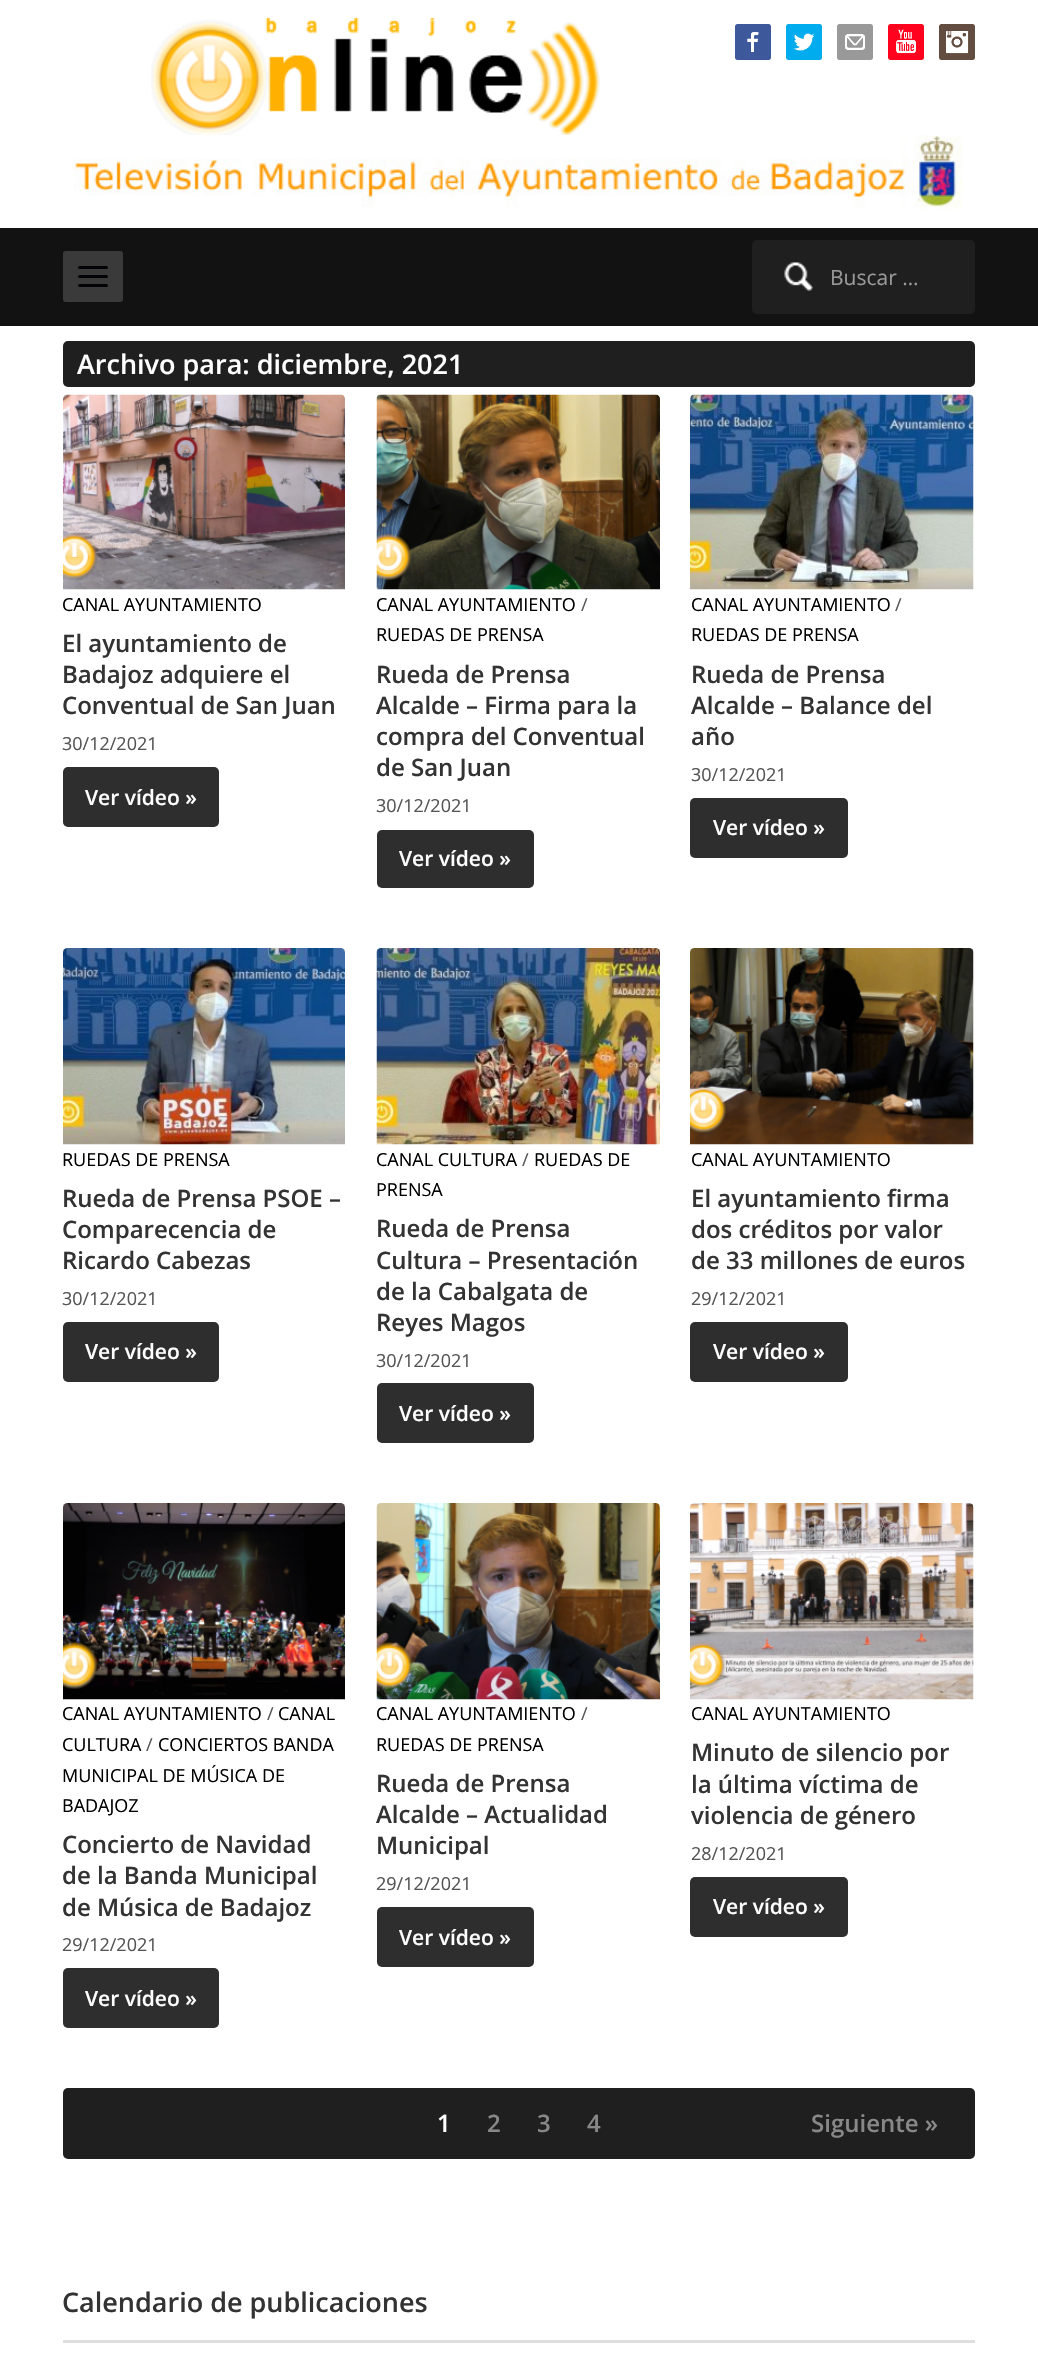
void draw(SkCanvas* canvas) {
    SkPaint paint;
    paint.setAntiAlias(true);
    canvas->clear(0xFFFFFFFF);
    canvas->drawImageRect(SkImages::DeferredFromEncodedData(SkData::MakeFromFileName("img1.png")), SkRect::MakeXYWH(151, 17, 449, 118), SkSamplingOptions());
    canvas->drawImageRect(SkImages::DeferredFromEncodedData(SkData::MakeFromFileName("img2.png")), SkRect::MakeXYWH(73, 135, 890, 75), SkSamplingOptions());
    canvas->drawImageRect(SkImages::DeferredFromEncodedData(SkData::MakeFromFileName("img3.png")), SkRect::MakeXYWH(735, 24, 36, 36), SkSamplingOptions());
    canvas->drawImageRect(SkImages::DeferredFromEncodedData(SkData::MakeFromFileName("img4.png")), SkRect::MakeXYWH(786, 24, 36, 36), SkSamplingOptions());
    canvas->drawImageRect(SkImages::DeferredFromEncodedData(SkData::MakeFromFileName("img5.png")), SkRect::MakeXYWH(837, 24, 36, 36), SkSamplingOptions());
    canvas->drawImageRect(SkImages::DeferredFromEncodedData(SkData::MakeFromFileName("img6.png")), SkRect::MakeXYWH(888, 24, 36, 36), SkSamplingOptions());
    canvas->drawImageRect(SkImages::DeferredFromEncodedData(SkData::MakeFromFileName("img7.png")), SkRect::MakeXYWH(939, 24, 36, 36), SkSamplingOptions());
    paint.setColor(0xFF121212);
    canvas->drawRect(SkRect::MakeXYWH(0, 228, 1038, 98), paint);
    paint.setColor(0xFF3A3A3A);
    canvas->drawRoundRect(SkRect::MakeXYWH(63, 251, 60, 51), 3, 3, paint);
    paint.setColor(0xFF020206);
    canvas->drawRoundRect(SkRect::MakeXYWH(78, 266, 30, 3), 1.5f, 1.5f, paint);
    canvas->drawRoundRect(SkRect::MakeXYWH(78, 275, 30, 3), 1.5f, 1.5f, paint);
    canvas->drawRoundRect(SkRect::MakeXYWH(78, 284, 30, 3), 1.5f, 1.5f, paint);
    paint.setColor(0xFF1F1F1F);
    canvas->drawRoundRect(SkRect::MakeXYWH(752, 240, 223, 74), 5, 5, paint);
    canvas->drawImageRect(SkImages::DeferredFromEncodedData(SkData::MakeFromFileName("img8.png")), SkRect::MakeXYWH(784, 262, 29, 29), SkSamplingOptions());
    SkFont font1(fontMgr->matchFamilyStyle("Open Sans", SkFontStyle::Normal()), 21);
    font1.setSubpixel(true);
    paint.setColor(0xFF999999);
    canvas->drawString("Buscar …", 830, 285, font1, paint);
    paint.setColor(0xFF1F1F1F);
    canvas->drawRoundRect(SkRect::MakeXYWH(63, 341, 912, 46), 5, 5, paint);
    SkFont font2(fontMgr->matchFamilyStyle("Open Sans", SkFontStyle(600, SkFontStyle::kNormal_Width, SkFontStyle::kUpright_Slant)), 27);
    font2.setSubpixel(true);
    paint.setColor(0xFFFFFFFF);
    canvas->drawString("Archivo para: diciembre, 2021", 77, 374, font2, paint);
    canvas->drawImageRect(SkImages::DeferredFromEncodedData(SkData::MakeFromFileName("img9.png")), SkRect::MakeXYWH(63, 394, 282, 196), SkSamplingOptions());
    SkFont font3(fontMgr->matchFamilyStyle("Open Sans", SkFontStyle::Normal()), 18);
    font3.setSubpixel(true);
    paint.setColor(0xFF000000);
    canvas->drawString("CANAL AYUNTAMIENTO", 62, 611, font3, paint);
    SkFont font4(fontMgr->matchFamilyStyle("Open Sans", SkFontStyle(600, SkFontStyle::kNormal_Width, SkFontStyle::kUpright_Slant)), 24);
    font4.setSubpixel(true);
    paint.setColor(0xFF333333);
    canvas->drawString("El ayuntamiento de", 62, 652, font4, paint);
    canvas->drawString("Badajoz adquiere el", 62, 683, font4, paint);
    canvas->drawString("Conventual de San Juan", 62, 714, font4, paint);
    paint.setColor(0xFF555555);
    canvas->drawString("30/12/2021", 62, 750, font3, paint);
    paint.setColor(0xFF2E2E2E);
    canvas->drawRoundRect(SkRect::MakeXYWH(63, 767, 156, 60), 5, 5, paint);
    SkFont font5(fontMgr->matchFamilyStyle("Open Sans", SkFontStyle(600, SkFontStyle::kNormal_Width, SkFontStyle::kUpright_Slant)), 21);
    font5.setSubpixel(true);
    paint.setColor(0xFFFFFFFF);
    canvas->drawString("Ver vídeo »", 85, 805, font5, paint);
    canvas->drawImageRect(SkImages::DeferredFromEncodedData(SkData::MakeFromFileName("img10.png")), SkRect::MakeXYWH(376, 394, 284, 196), SkSamplingOptions());
    paint.setColor(0xFF000000);
    canvas->drawString("CANAL AYUNTAMIENTO", 376, 611, font3, paint);
    paint.setColor(0xFF555555);
    canvas->drawString("/", 581, 611, font3, paint);
    paint.setColor(0xFF000000);
    canvas->drawString("RUEDAS DE PRENSA", 376, 641, font3, paint);
    paint.setColor(0xFF333333);
    canvas->drawString("Rueda de Prensa", 376, 683, font4, paint);
    canvas->drawString("Alcalde – Firma para la", 376, 714, font4, paint);
    canvas->drawString("compra del Conventual", 376, 745, font4, paint);
    canvas->drawString("de San Juan", 376, 776, font4, paint);
    paint.setColor(0xFF555555);
    canvas->drawString("30/12/2021", 376, 812, font3, paint);
    paint.setColor(0xFF2E2E2E);
    canvas->drawRoundRect(SkRect::MakeXYWH(377, 830, 157, 58), 5, 5, paint);
    paint.setColor(0xFFFFFFFF);
    canvas->drawString("Ver vídeo »", 399, 866, font5, paint);
    canvas->drawImageRect(SkImages::DeferredFromEncodedData(SkData::MakeFromFileName("img11.png")), SkRect::MakeXYWH(690, 394, 284, 196), SkSamplingOptions());
    paint.setColor(0xFF000000);
    canvas->drawString("CANAL AYUNTAMIENTO", 691, 611, font3, paint);
    paint.setColor(0xFF555555);
    canvas->drawString("/", 895, 611, font3, paint);
    paint.setColor(0xFF000000);
    canvas->drawString("RUEDAS DE PRENSA", 691, 641, font3, paint);
    paint.setColor(0xFF333333);
    canvas->drawString("Rueda de Prensa", 691, 683, font4, paint);
    canvas->drawString("Alcalde – Balance del", 691, 714, font4, paint);
    canvas->drawString("año", 691, 745, font4, paint);
    paint.setColor(0xFF555555);
    canvas->drawString("30/12/2021", 691, 781, font3, paint);
    paint.setColor(0xFF2E2E2E);
    canvas->drawRoundRect(SkRect::MakeXYWH(690, 798, 158, 60), 5, 5, paint);
    paint.setColor(0xFFFFFFFF);
    canvas->drawString("Ver vídeo »", 713, 835, font5, paint);
    canvas->drawImageRect(SkImages::DeferredFromEncodedData(SkData::MakeFromFileName("img12.png")), SkRect::MakeXYWH(63, 948, 282, 197), SkSamplingOptions());
    paint.setColor(0xFF000000);
    canvas->drawString("RUEDAS DE PRENSA", 62, 1166, font3, paint);
    paint.setColor(0xFF333333);
    canvas->drawString("Rueda de Prensa PSOE –", 62, 1207, font4, paint);
    canvas->drawString("Comparecencia de", 62, 1238, font4, paint);
    canvas->drawString("Ricardo Cabezas", 62, 1269, font4, paint);
    paint.setColor(0xFF555555);
    canvas->drawString("30/12/2021", 62, 1305, font3, paint);
    paint.setColor(0xFF2E2E2E);
    canvas->drawRoundRect(SkRect::MakeXYWH(63, 1322, 156, 60), 5, 5, paint);
    paint.setColor(0xFFFFFFFF);
    canvas->drawString("Ver vídeo »", 85, 1359, font5, paint);
    canvas->drawImageRect(SkImages::DeferredFromEncodedData(SkData::MakeFromFileName("img13.png")), SkRect::MakeXYWH(376, 948, 284, 197), SkSamplingOptions());
    paint.setColor(0xFF000000);
    canvas->drawString("CANAL CULTURA", 376, 1166, font3, paint);
    paint.setColor(0xFF555555);
    canvas->drawString("/", 522, 1166, font3, paint);
    paint.setColor(0xFF000000);
    canvas->drawString("RUEDAS DE", 534, 1166, font3, paint);
    canvas->drawString("PRENSA", 376, 1196, font3, paint);
    paint.setColor(0xFF333333);
    canvas->drawString("Rueda de Prensa", 376, 1237, font4, paint);
    canvas->drawString("Cultura – Presentación", 376, 1269, font4, paint);
    canvas->drawString("de la Cabalgata de", 376, 1300, font4, paint);
    canvas->drawString("Reyes Magos", 376, 1331, font4, paint);
    paint.setColor(0xFF555555);
    canvas->drawString("30/12/2021", 376, 1367, font3, paint);
    paint.setColor(0xFF2E2E2E);
    canvas->drawRoundRect(SkRect::MakeXYWH(377, 1383, 157, 60), 5, 5, paint);
    paint.setColor(0xFFFFFFFF);
    canvas->drawString("Ver vídeo »", 399, 1421, font5, paint);
    canvas->drawImageRect(SkImages::DeferredFromEncodedData(SkData::MakeFromFileName("img14.png")), SkRect::MakeXYWH(690, 948, 284, 197), SkSamplingOptions());
    paint.setColor(0xFF000000);
    canvas->drawString("CANAL AYUNTAMIENTO", 691, 1166, font3, paint);
    paint.setColor(0xFF333333);
    canvas->drawString("El ayuntamiento firma", 691, 1207, font4, paint);
    canvas->drawString("dos créditos por valor", 691, 1238, font4, paint);
    canvas->drawString("de 33 millones de euros", 691, 1269, font4, paint);
    paint.setColor(0xFF555555);
    canvas->drawString("29/12/2021", 691, 1305, font3, paint);
    paint.setColor(0xFF2E2E2E);
    canvas->drawRoundRect(SkRect::MakeXYWH(690, 1322, 158, 60), 5, 5, paint);
    paint.setColor(0xFFFFFFFF);
    canvas->drawString("Ver vídeo »", 713, 1359, font5, paint);
    canvas->drawImageRect(SkImages::DeferredFromEncodedData(SkData::MakeFromFileName("img15.png")), SkRect::MakeXYWH(63, 1503, 282, 197), SkSamplingOptions());
    paint.setColor(0xFF000000);
    canvas->drawString("CANAL AYUNTAMIENTO", 62, 1720, font3, paint);
    paint.setColor(0xFF555555);
    canvas->drawString("/", 267, 1720, font3, paint);
    paint.setColor(0xFF000000);
    canvas->drawString("CANAL", 278, 1720, font3, paint);
    canvas->drawString("CULTURA", 62, 1751, font3, paint);
    paint.setColor(0xFF555555);
    canvas->drawString("/", 146, 1751, font3, paint);
    paint.setColor(0xFF000000);
    canvas->drawString("CONCIERTOS BANDA", 158, 1751, font3, paint);
    canvas->drawString("MUNICIPAL DE MÚSICA DE", 62, 1782, font3, paint);
    canvas->drawString("BADAJOZ", 62, 1812, font3, paint);
    paint.setColor(0xFF333333);
    canvas->drawString("Concierto de Navidad", 62, 1853, font4, paint);
    canvas->drawString("de la Banda Municipal", 62, 1884, font4, paint);
    canvas->drawString("de Música de Badajoz", 62, 1916, font4, paint);
    paint.setColor(0xFF555555);
    canvas->drawString("29/12/2021", 62, 1951, font3, paint);
    paint.setColor(0xFF2E2E2E);
    canvas->drawRoundRect(SkRect::MakeXYWH(63, 1968, 156, 60), 5, 5, paint);
    paint.setColor(0xFFFFFFFF);
    canvas->drawString("Ver vídeo »", 85, 2006, font5, paint);
    canvas->drawImageRect(SkImages::DeferredFromEncodedData(SkData::MakeFromFileName("img16.png")), SkRect::MakeXYWH(376, 1503, 284, 197), SkSamplingOptions());
    paint.setColor(0xFF000000);
    canvas->drawString("CANAL AYUNTAMIENTO", 376, 1720, font3, paint);
    paint.setColor(0xFF555555);
    canvas->drawString("/", 581, 1720, font3, paint);
    paint.setColor(0xFF000000);
    canvas->drawString("RUEDAS DE PRENSA", 376, 1751, font3, paint);
    paint.setColor(0xFF333333);
    canvas->drawString("Rueda de Prensa", 376, 1792, font4, paint);
    canvas->drawString("Alcalde – Actualidad", 376, 1823, font4, paint);
    canvas->drawString("Municipal", 376, 1854, font4, paint);
    paint.setColor(0xFF555555);
    canvas->drawString("29/12/2021", 376, 1890, font3, paint);
    paint.setColor(0xFF2E2E2E);
    canvas->drawRoundRect(SkRect::MakeXYWH(377, 1907, 157, 60), 5, 5, paint);
    paint.setColor(0xFFFFFFFF);
    canvas->drawString("Ver vídeo »", 399, 1945, font5, paint);
    canvas->drawImageRect(SkImages::DeferredFromEncodedData(SkData::MakeFromFileName("img17.png")), SkRect::MakeXYWH(690, 1503, 284, 197), SkSamplingOptions());
    paint.setColor(0xFF000000);
    canvas->drawString("CANAL AYUNTAMIENTO", 691, 1720, font3, paint);
    paint.setColor(0xFF333333);
    canvas->drawString("Minuto de silencio por", 691, 1761, font4, paint);
    canvas->drawString("la última víctima de", 691, 1793, font4, paint);
    canvas->drawString("violencia de género", 691, 1824, font4, paint);
    paint.setColor(0xFF555555);
    canvas->drawString("28/12/2021", 691, 1860, font3, paint);
    paint.setColor(0xFF2E2E2E);
    canvas->drawRoundRect(SkRect::MakeXYWH(690, 1877, 158, 60), 5, 5, paint);
    paint.setColor(0xFFFFFFFF);
    canvas->drawString("Ver vídeo »", 713, 1914, font5, paint);
    paint.setColor(0xFF1F1F1F);
    canvas->drawRoundRect(SkRect::MakeXYWH(63, 2088, 912, 71), 5, 5, paint);
    paint.setColor(0xFFFFFFFF);
    canvas->drawString("1", 437, 2132, font4, paint);
    paint.setColor(0xFF888888);
    canvas->drawString("2", 487, 2132, font4, paint);
    canvas->drawString("3", 537, 2132, font4, paint);
    canvas->drawString("4", 587, 2132, font4, paint);
    canvas->drawString("Siguiente »", 811, 2132, font4, paint);
    paint.setColor(0xFFDFDFDF);
    canvas->drawRect(SkRect::MakeXYWH(63, 2340, 912, 3), paint);
    paint.setColor(0xFF333333);
    canvas->drawString("Calendario de publicaciones", 62, 2312, font2, paint);
}
